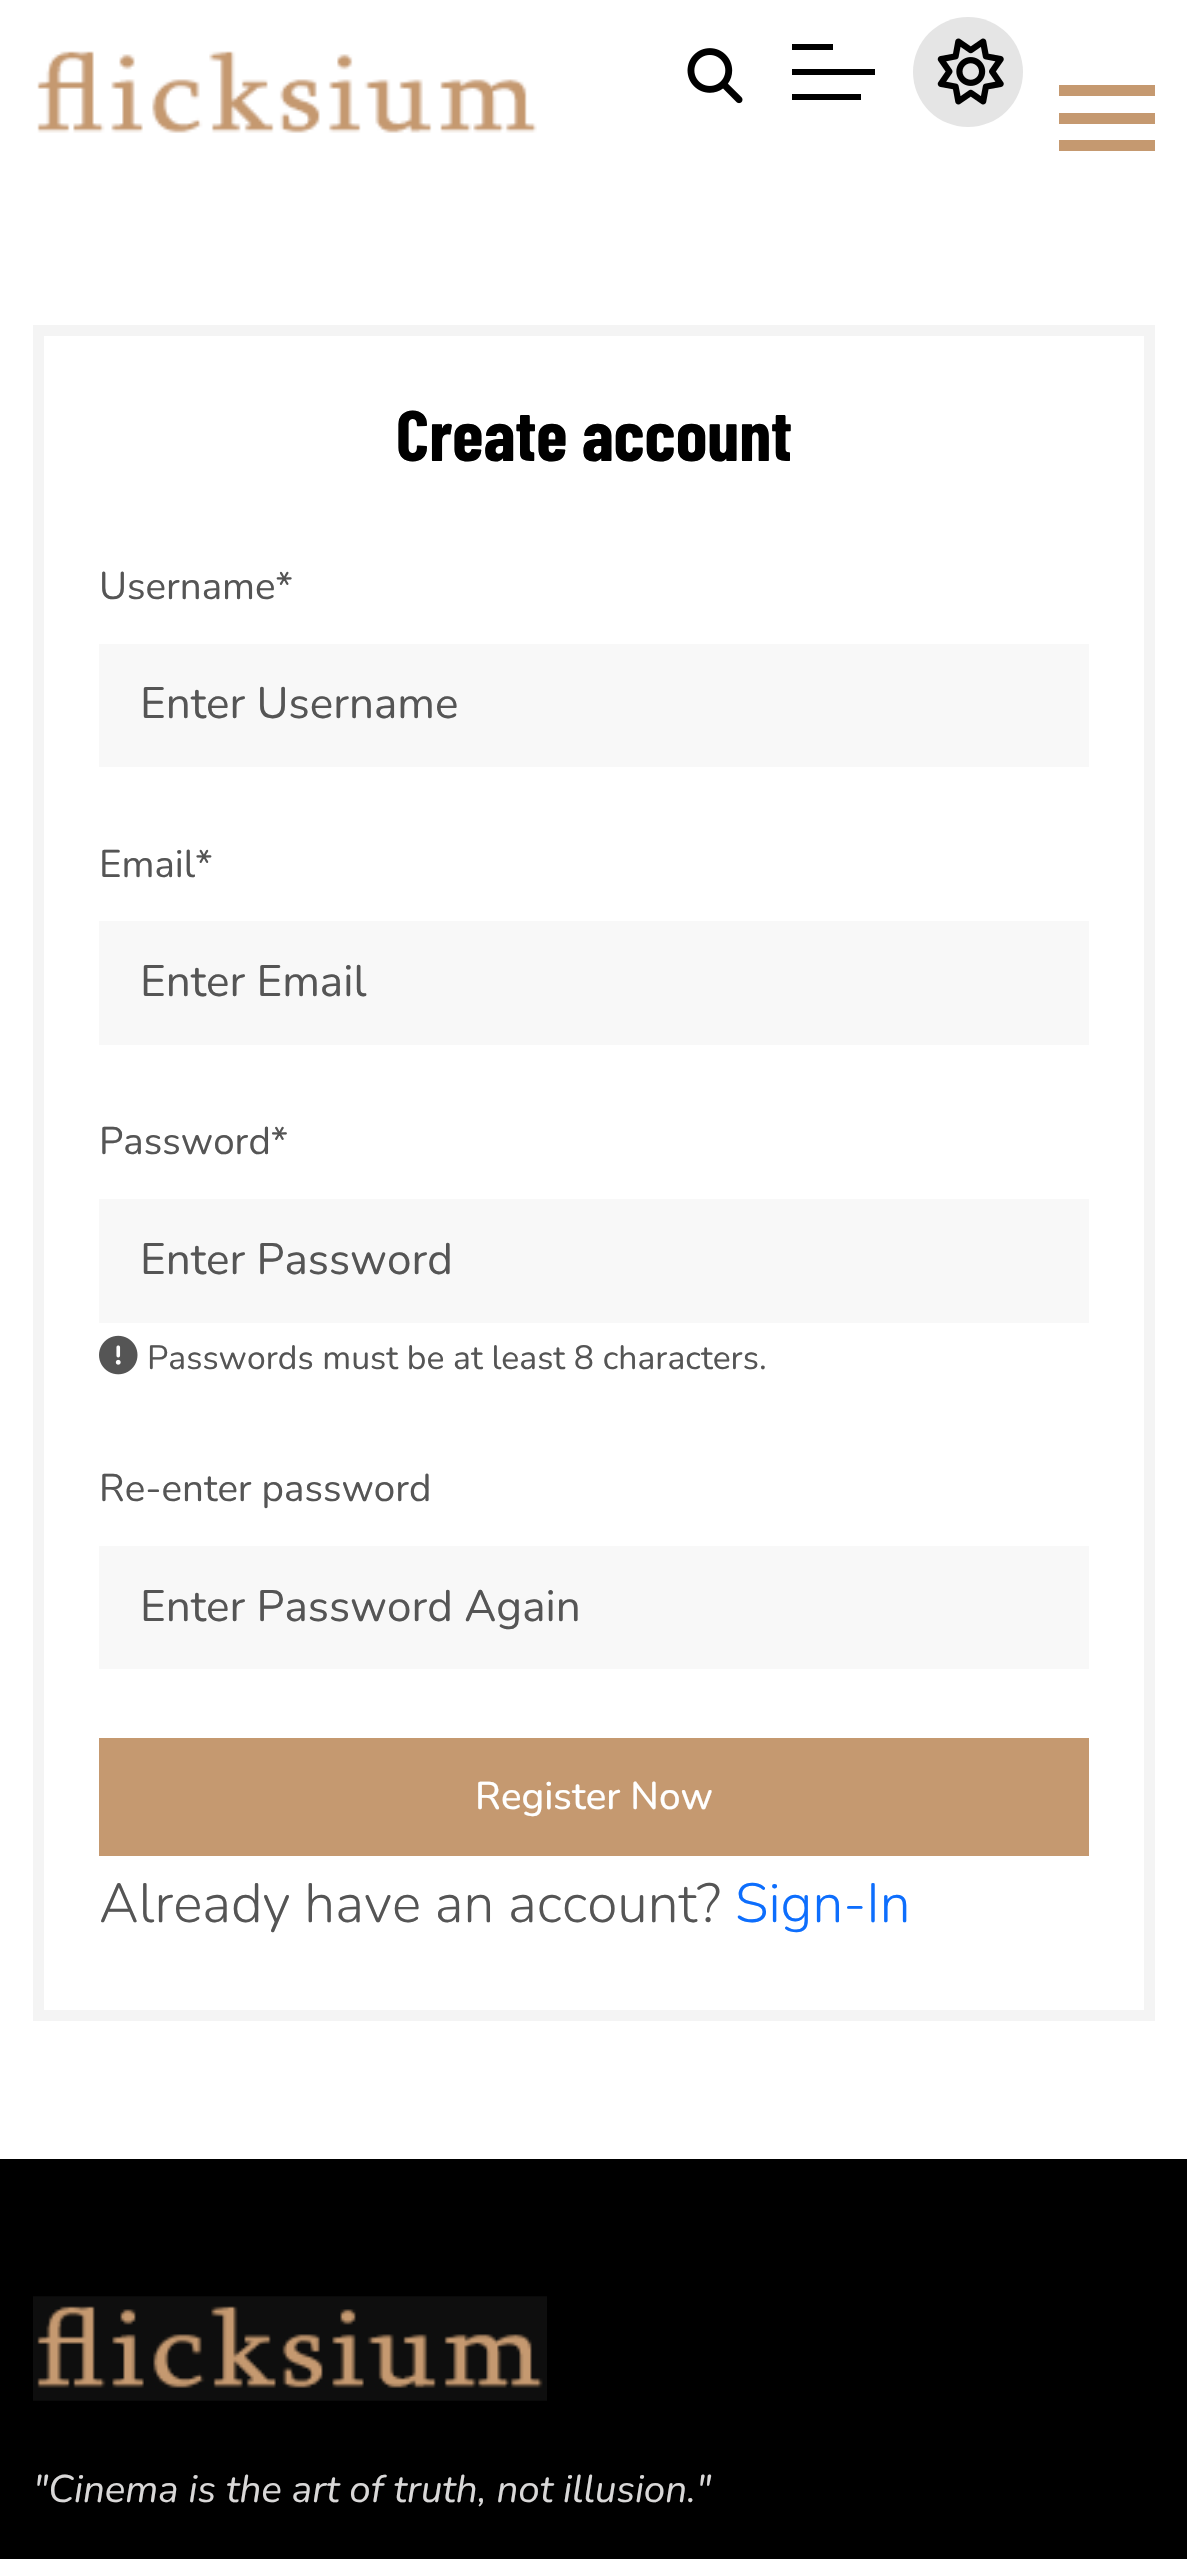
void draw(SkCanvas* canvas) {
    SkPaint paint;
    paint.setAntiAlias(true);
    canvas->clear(0xFFFFFFFF);
    canvas->drawImageRect(SkImages::DeferredFromEncodedData(SkData::MakeFromFileName("img1.png")), SkRect::MakeXYWH(687, 48, 56, 56), SkSamplingOptions());
    paint.setColor(0xFF000000);
    canvas->drawRect(SkRect::MakeXYWH(792, 94, 69, 6), paint);
    canvas->drawRect(SkRect::MakeXYWH(792, 44, 41, 6), paint);
    canvas->drawRect(SkRect::MakeXYWH(792, 69, 83, 6), paint);
    paint.setColor(0xFFE5E5E5);
    canvas->drawCircle(968, 72, 55, paint);
    canvas->drawImageRect(SkImages::DeferredFromEncodedData(SkData::MakeFromFileName("img2.png")), SkRect::MakeXYWH(937, 38, 67, 67), SkSamplingOptions());
    canvas->drawImageRect(SkImages::DeferredFromEncodedData(SkData::MakeFromFileName("img3.png")), SkRect::MakeXYWH(37, 51, 500, 82), SkSamplingOptions());
    paint.setColor(0xFFC59970);
    canvas->drawRect(SkRect::MakeXYWH(1059, 85, 96, 11), paint);
    canvas->drawRect(SkRect::MakeXYWH(1059, 113, 96, 11), paint);
    canvas->drawRect(SkRect::MakeXYWH(1059, 140, 96, 11), paint);
    paint.setStyle(SkPaint::kStroke_Style);
    paint.setStrokeWidth(11);
    paint.setColor(0xFFF4F4F4);
    canvas->drawRect(SkRect::MakeXYWH(38.5f, 330.5f, 1111, 1685), paint);
    SkFont font1(fontMgr->matchFamilyStyle("Barlow Condensed", SkFontStyle::Bold()), 71.5f);
    font1.setSubpixel(true);
    paint.setStyle(SkPaint::kFill_Style);
    paint.setColor(0xFF000000);
    canvas->drawString("Create account", 396, 461, font1, paint);
    SkFont font2(fontMgr->matchFamilyStyle("Nunito", SkFontStyle::Normal()), 38.5f);
    font2.setSubpixel(true);
    paint.setColor(0xFF555555);
    canvas->drawString("Username*", 99, 599, font2, paint);
    paint.setColor(0xFFF8F8F8);
    canvas->drawRect(SkRect::MakeXYWH(99, 644, 990, 123), paint);
    SkFont font3(fontMgr->matchFamilyStyle("Nunito", SkFontStyle::Normal()), 44);
    font3.setSubpixel(true);
    paint.setColor(0xFF555555);
    canvas->drawString("Enter Username", 140, 718, font3, paint);
    canvas->drawString("Email*", 99, 877, font2, paint);
    paint.setColor(0xFFF8F8F8);
    canvas->drawRect(SkRect::MakeXYWH(99, 921, 990, 124), paint);
    paint.setColor(0xFF555555);
    canvas->drawString("Enter Email", 140, 996, font3, paint);
    canvas->drawString("Password*", 99, 1154, font2, paint);
    paint.setColor(0xFFF8F8F8);
    canvas->drawRect(SkRect::MakeXYWH(99, 1199, 990, 124), paint);
    paint.setColor(0xFF555555);
    canvas->drawString("Enter Password", 140, 1274, font3, paint);
    canvas->drawImageRect(SkImages::DeferredFromEncodedData(SkData::MakeFromFileName("img4.png")), SkRect::MakeXYWH(99, 1335, 39, 40), SkSamplingOptions());
    SkFont font4(fontMgr->matchFamilyStyle("Nunito", SkFontStyle::Normal()), 33.7f);
    font4.setSubpixel(true);
    canvas->drawString("Passwords must be at least 8 characters.", 147, 1369, font4, paint);
    canvas->drawString("Re-enter password", 99, 1501, font2, paint);
    paint.setColor(0xFFF8F8F8);
    canvas->drawRect(SkRect::MakeXYWH(99, 1546, 990, 123), paint);
    paint.setColor(0xFF555555);
    canvas->drawString("Enter Password Again", 140, 1621, font3, paint);
    paint.setColor(0xFFC59970);
    canvas->drawRect(SkRect::MakeXYWH(99, 1738, 990, 118), paint);
    SkFont font5(fontMgr->matchFamilyStyle("Nunito", SkFontStyle(500, SkFontStyle::kNormal_Width, SkFontStyle::kUpright_Slant)), 38.5f);
    font5.setSubpixel(true);
    paint.setColor(0xFFFFFFFF);
    canvas->drawString("Register Now", 475, 1809, font5, paint);
    SkFont font6(fontMgr->matchFamilyStyle("Nunito", SkFontStyle(300, SkFontStyle::kNormal_Width, SkFontStyle::kUpright_Slant)), 55);
    font6.setSubpixel(true);
    paint.setColor(0xFF555555);
    canvas->drawString("Already have an account?", 99, 1922, font6, paint);
    paint.setColor(0xFF0D6EFD);
    canvas->drawString("Sign-In", 735, 1922, font6, paint);
    paint.setColor(0xFF000000);
    canvas->drawRect(SkRect::MakeXYWH(0, 2159, 1187, 400), paint);
    canvas->drawImageRect(SkImages::DeferredFromEncodedData(SkData::MakeFromFileName("img5.png")), SkRect::MakeXYWH(33, 2296, 514, 105), SkSamplingOptions());
    SkFont font7(fontMgr->matchFamilyStyle("Nunito", SkFontStyle::Italic()), 38.5f);
    font7.setSubpixel(true);
    paint.setColor(0xFFD9D8D8);
    canvas->drawString("\"Cinema is the art of truth, not illusion.\"", 33, 2502, font7, paint);
}
